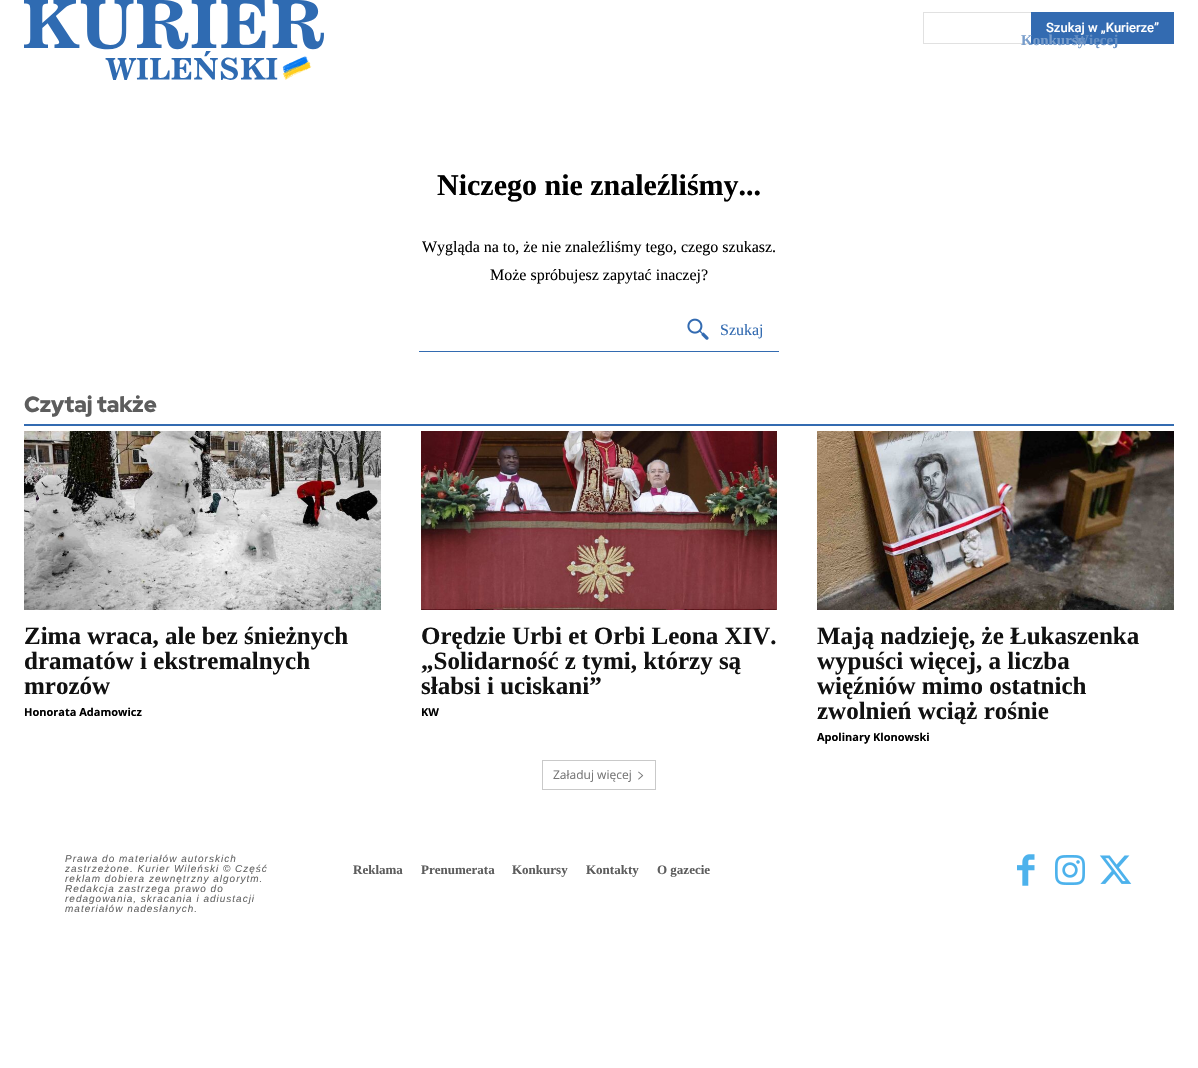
void draw(SkCanvas* canvas) {
    SkPaint paint;
    paint.setAntiAlias(true);
    auto spacedText = [&](const char* s, float x, float y, const SkFont& font, const SkPaint& ink, float letter, float word) {
        std::vector<SkGlyphID> glyphs(font.countText(s, strlen(s), SkTextEncoding::kUTF8));
        std::vector<float> xs(glyphs.size());
        font.textToGlyphs(s, strlen(s), SkTextEncoding::kUTF8, glyphs);
        font.getXPos(glyphs, xs, x);
        float extra = 0;
        for (size_t i = 0; i < glyphs.size(); i++) {
            xs[i] += extra;
            extra += letter + word * (glyphs[i] == font.unicharToGlyph(' '));
        }
        canvas->drawTextBlob(SkTextBlob::MakeFromPosHGlyphs(glyphs, xs, y, font), 0, 0, ink);
    };
    canvas->clear(0xFFFFFFFF);
    canvas->drawImageRect(SkImages::DeferredFromEncodedData(SkData::MakeFromFileName("img1.png")), SkRect::MakeXYWH(24, 0, 300, 80), SkSamplingOptions());
    paint.setStyle(SkPaint::kStroke_Style);
    paint.setStrokeWidth(1);
    paint.setColor(0xFFE1E1E1);
    canvas->drawRect(SkRect::MakeXYWH(923.5f, 12.5f, 250, 31), paint);
    paint.setStyle(SkPaint::kFill_Style);
    paint.setColor(0xFF336BB1);
    canvas->drawRect(SkRect::MakeXYWH(1031, 12, 143, 32), paint);
    SkFont font1(fontMgr->matchFamilyStyle("Roboto", SkFontStyle(500, SkFontStyle::kNormal_Width, SkFontStyle::kUpright_Slant)), 13);
    font1.setSubpixel(true);
    paint.setColor(0xFFFFFFFF);
    canvas->drawString("Szukaj w „Kurierze”", 1046, 32, font1, paint);
    SkFont font2(fontMgr->matchFamilyStyle("Liberation Serif", SkFontStyle::Bold()), 15);
    font2.setSubpixel(true);
    paint.setColor(0xFF789DCB);
    canvas->drawString("Konkursy", 1021, 45, font2, paint);
    paint.setColor(0xFF658FC4);
    canvas->drawString("Więcej", 1074, 45, font2, paint);
    SkFont font3(fontMgr->matchFamilyStyle("Liberation Serif", SkFontStyle::Bold()), 30);
    font3.setSubpixel(true);
    paint.setColor(0xFF000000);
    canvas->drawString("Niczego nie znaleźliśmy...", 437, 195, font3, paint);
    SkFont font4(fontMgr->matchFamilyStyle("Liberation Serif", SkFontStyle::Normal()), 16);
    font4.setSubpixel(true);
    canvas->drawString("Wygląda na to, że nie znaleźliśmy tego, czego szukasz.", 422, 252, font4, paint);
    canvas->drawString("Może spróbujesz zapytać inaczej?", 490, 280, font4, paint);
    canvas->drawImageRect(SkImages::DeferredFromEncodedData(SkData::MakeFromFileName("img2.png")), SkRect::MakeXYWH(687, 318, 22, 22), SkSamplingOptions());
    paint.setColor(0xFF336BB1);
    canvas->drawString("Szukaj", 720, 335, font4, paint);
    canvas->drawRect(SkRect::MakeXYWH(419, 351, 360, 1), paint);
    canvas->drawRect(SkRect::MakeXYWH(24, 424, 1150, 2), paint);
    SkFont font5(fontMgr->matchFamilyStyle("Red Hat Display", SkFontStyle(900, SkFontStyle::kNormal_Width, SkFontStyle::kUpright_Slant)), 22);
    font5.setSubpixel(true);
    paint.setColor(0xFF5D5D5D);
    canvas->drawString("Czytaj także", 24, 412, font5, paint);
    canvas->drawImageRect(SkImages::DeferredFromEncodedData(SkData::MakeFromFileName("img3.png")), SkRect::MakeXYWH(24, 431, 357, 179), SkSamplingOptions());
    SkFont font6(fontMgr->matchFamilyStyle("Liberation Serif", SkFontStyle::Bold()), 25);
    font6.setSubpixel(true);
    paint.setColor(0xFF111111);
    canvas->drawString("Zima wraca, ale bez śnieżnych", 24, 644, font6, paint);
    canvas->drawString("dramatów i ekstremalnych", 24, 669, font6, paint);
    canvas->drawString("mrozów", 24, 694, font6, paint);
    SkFont font7(fontMgr->matchFamilyStyle("Open Sans", SkFontStyle::Bold()), 11);
    font7.setSubpixel(true);
    paint.setColor(0xFF000000);
    canvas->drawString("Honorata Adamowicz", 24, 716, font7, paint);
    canvas->drawImageRect(SkImages::DeferredFromEncodedData(SkData::MakeFromFileName("img4.png")), SkRect::MakeXYWH(421, 431, 356, 179), SkSamplingOptions());
    paint.setColor(0xFF111111);
    canvas->drawString("Orędzie Urbi et Orbi Leona XIV.", 421, 644, font6, paint);
    canvas->drawString("„Solidarność z tymi, którzy są", 421, 669, font6, paint);
    canvas->drawString("słabsi i uciskani”", 421, 694, font6, paint);
    paint.setColor(0xFF000000);
    canvas->drawString("KW", 421, 716, font7, paint);
    canvas->drawImageRect(SkImages::DeferredFromEncodedData(SkData::MakeFromFileName("img5.png")), SkRect::MakeXYWH(817, 431, 357, 179), SkSamplingOptions());
    paint.setColor(0xFF111111);
    canvas->drawString("Mają nadzieję, że Łukaszenka", 817, 644, font6, paint);
    canvas->drawString("wypuści więcej, a liczba", 817, 669, font6, paint);
    canvas->drawString("więźniów mimo ostatnich", 817, 694, font6, paint);
    canvas->drawString("zwolnień wciąż rośnie", 817, 719, font6, paint);
    paint.setColor(0xFF000000);
    canvas->drawString("Apolinary Klonowski", 817, 741, font7, paint);
    paint.setStyle(SkPaint::kStroke_Style);
    paint.setColor(0xFFC9C9C9);
    canvas->drawRect(SkRect::MakeXYWH(542.5f, 760.5f, 113, 29), paint);
    SkFont font8(fontMgr->matchFamilyStyle("Open Sans", SkFontStyle::Normal()), 12);
    font8.setSubpixel(true);
    paint.setStyle(SkPaint::kFill_Style);
    paint.setColor(0xFF767676);
    canvas->drawString("Załaduj więcej", 553, 779, font8, paint);
    canvas->drawImageRect(SkImages::DeferredFromEncodedData(SkData::MakeFromFileName("img6.png")), SkRect::MakeXYWH(638, 771, 6, 9), SkSamplingOptions());
    SkFont font9(fontMgr->matchFamilyStyle("Liberation Sans", SkFontStyle::Italic()), 10);
    font9.setSubpixel(true);
    paint.setColor(0xFF666666);
    spacedText("Prawa do materiałów autorskich", 65, 862, font9, paint, 1, 0);
    spacedText("zastrzeżone. Kurier Wileński © Część", 65, 872, font9, paint, 1, 0);
    spacedText("reklam dobiera zewnętrzny algorytm.", 65, 882, font9, paint, 1, 0);
    spacedText("Redakcja zastrzega prawo do", 65, 892, font9, paint, 1, 0);
    spacedText("redagowania, skracania i adiustacji", 65, 902, font9, paint, 1, 0);
    spacedText("materiałów nadesłanych.", 65, 912, font9, paint, 1, 0);
    SkFont font10(fontMgr->matchFamilyStyle("Liberation Serif", SkFontStyle::Bold()), 13);
    font10.setSubpixel(true);
    paint.setColor(0xFF5D5D5D);
    canvas->drawString("Reklama", 353, 874, font10, paint);
    canvas->drawString("Prenumerata", 421, 874, font10, paint);
    canvas->drawString("Konkursy", 512, 874, font10, paint);
    canvas->drawString("Kontakty", 586, 874, font10, paint);
    canvas->drawString("O gazecie", 657, 874, font10, paint);
    canvas->drawImageRect(SkImages::DeferredFromEncodedData(SkData::MakeFromFileName("img7.png")), SkRect::MakeXYWH(1017, 854, 18, 32), SkSamplingOptions());
    canvas->drawImageRect(SkImages::DeferredFromEncodedData(SkData::MakeFromFileName("img8.png")), SkRect::MakeXYWH(1055, 855, 30, 30), SkSamplingOptions());
    canvas->drawImageRect(SkImages::DeferredFromEncodedData(SkData::MakeFromFileName("img9.png")), SkRect::MakeXYWH(1099, 855, 33, 29), SkSamplingOptions());
}
